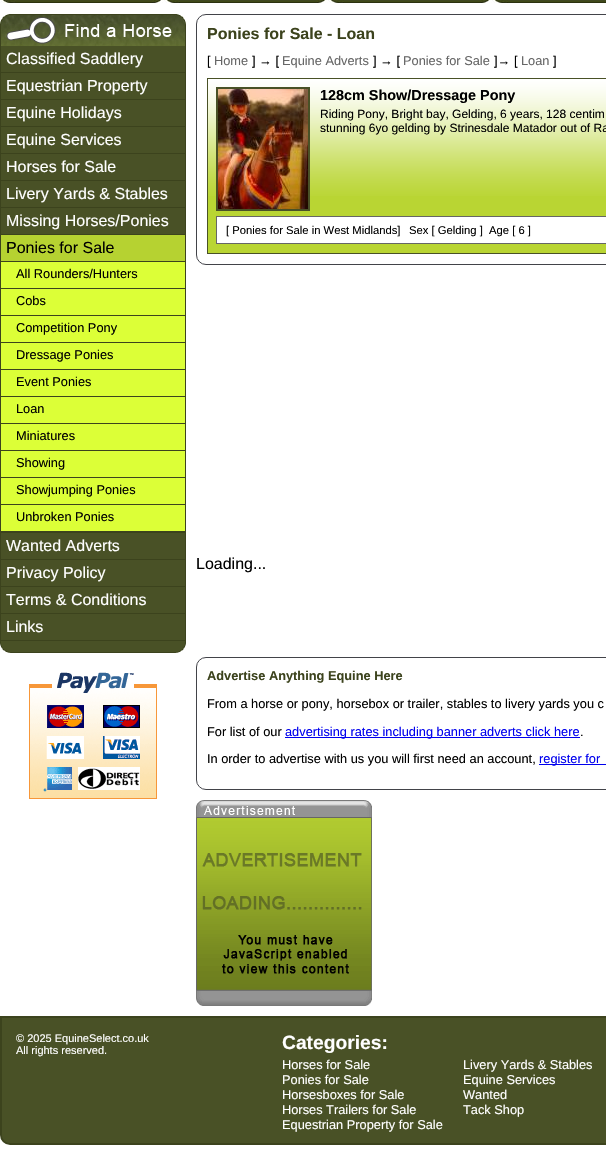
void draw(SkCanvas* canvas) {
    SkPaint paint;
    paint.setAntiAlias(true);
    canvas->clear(0xFFFFFFFF);
    canvas->drawImageRect(SkImages::DeferredFromEncodedData(SkData::MakeFromFileName("img1.png")), SkRect::MakeXYWH(0, 0, 164, 3), SkSamplingOptions());
    canvas->drawImageRect(SkImages::DeferredFromEncodedData(SkData::MakeFromFileName("img2.png")), SkRect::MakeXYWH(164, 0, 164, 3), SkSamplingOptions());
    canvas->drawImageRect(SkImages::DeferredFromEncodedData(SkData::MakeFromFileName("img2.png")), SkRect::MakeXYWH(328, 0, 164, 3), SkSamplingOptions());
    canvas->drawImageRect(SkImages::DeferredFromEncodedData(SkData::MakeFromFileName("img3.png")), SkRect::MakeXYWH(492, 0, 114, 3), SkSamplingOptions());
    canvas->drawImageRect(SkImages::DeferredFromEncodedData(SkData::MakeFromFileName("img4.png")), SkRect::MakeXYWH(0, 14, 186, 32), SkSamplingOptions());
    paint.setColor(0xFF3C431D);
    canvas->drawRect(SkRect::MakeXYWH(185, 46, 1, 595), paint);
    canvas->drawRect(SkRect::MakeXYWH(0, 46, 1, 595), paint);
    canvas->drawRect(SkRect::MakeXYWH(1, 72, 184, 1), paint);
    paint.setColor(0xFF495126);
    canvas->drawRect(SkRect::MakeXYWH(1, 46, 184, 26), paint);
    SkFont font1(fontMgr->matchFamilyStyle("Liberation Sans", SkFontStyle::Normal()), 16);
    font1.setSubpixel(true);
    paint.setColor(0xFFFFFFFF);
    canvas->drawString("Classified Saddlery", 6, 64, font1, paint);
    paint.setColor(0xFF3C431D);
    canvas->drawRect(SkRect::MakeXYWH(1, 99, 184, 1), paint);
    paint.setColor(0xFF495126);
    canvas->drawRect(SkRect::MakeXYWH(1, 73, 184, 26), paint);
    paint.setColor(0xFFFFFFFF);
    canvas->drawString("Equestrian Property", 6, 91, font1, paint);
    paint.setColor(0xFF3C431D);
    canvas->drawRect(SkRect::MakeXYWH(1, 126, 184, 1), paint);
    paint.setColor(0xFF495126);
    canvas->drawRect(SkRect::MakeXYWH(1, 100, 184, 26), paint);
    paint.setColor(0xFFFFFFFF);
    canvas->drawString("Equine Holidays", 6, 118, font1, paint);
    paint.setColor(0xFF3C431D);
    canvas->drawRect(SkRect::MakeXYWH(1, 153, 184, 1), paint);
    paint.setColor(0xFF495126);
    canvas->drawRect(SkRect::MakeXYWH(1, 127, 184, 26), paint);
    paint.setColor(0xFFFFFFFF);
    canvas->drawString("Equine Services", 6, 145, font1, paint);
    paint.setColor(0xFF3C431D);
    canvas->drawRect(SkRect::MakeXYWH(1, 180, 184, 1), paint);
    paint.setColor(0xFF495126);
    canvas->drawRect(SkRect::MakeXYWH(1, 154, 184, 26), paint);
    paint.setColor(0xFFFFFFFF);
    canvas->drawString("Horses for Sale", 6, 172, font1, paint);
    paint.setColor(0xFF3C431D);
    canvas->drawRect(SkRect::MakeXYWH(1, 207, 184, 1), paint);
    paint.setColor(0xFF495126);
    canvas->drawRect(SkRect::MakeXYWH(1, 181, 184, 26), paint);
    paint.setColor(0xFFFFFFFF);
    canvas->drawString("Livery Yards & Stables", 6, 199, font1, paint);
    paint.setColor(0xFF3C431D);
    canvas->drawRect(SkRect::MakeXYWH(1, 234, 184, 1), paint);
    paint.setColor(0xFF495126);
    canvas->drawRect(SkRect::MakeXYWH(1, 208, 184, 26), paint);
    paint.setColor(0xFFFFFFFF);
    canvas->drawString("Missing Horses/Ponies", 6, 226, font1, paint);
    paint.setColor(0xFF3C431D);
    canvas->drawRect(SkRect::MakeXYWH(1, 531, 184, 2), paint);
    paint.setColor(0xFFB6D231);
    canvas->drawRect(SkRect::MakeXYWH(1, 235, 184, 26), paint);
    paint.setColor(0xFF000000);
    canvas->drawString("Ponies for Sale", 6, 253, font1, paint);
    paint.setColor(0xFF3C431D);
    canvas->drawRect(SkRect::MakeXYWH(1, 261, 184, 1), paint);
    canvas->drawRect(SkRect::MakeXYWH(1, 288, 184, 1), paint);
    paint.setColor(0xFFDCFF37);
    canvas->drawRect(SkRect::MakeXYWH(1, 262, 184, 26), paint);
    SkFont font2(fontMgr->matchFamilyStyle("Liberation Sans", SkFontStyle::Normal()), 12.8f);
    font2.setSubpixel(true);
    paint.setColor(0xFF000000);
    canvas->drawString("All Rounders/Hunters", 16, 278, font2, paint);
    paint.setColor(0xFF3C431D);
    canvas->drawRect(SkRect::MakeXYWH(1, 315, 184, 1), paint);
    paint.setColor(0xFFDCFF37);
    canvas->drawRect(SkRect::MakeXYWH(1, 289, 184, 26), paint);
    paint.setColor(0xFF000000);
    canvas->drawString("Cobs", 16, 305, font2, paint);
    paint.setColor(0xFF3C431D);
    canvas->drawRect(SkRect::MakeXYWH(1, 342, 184, 1), paint);
    paint.setColor(0xFFDCFF37);
    canvas->drawRect(SkRect::MakeXYWH(1, 316, 184, 26), paint);
    paint.setColor(0xFF000000);
    canvas->drawString("Competition Pony", 16, 332, font2, paint);
    paint.setColor(0xFF3C431D);
    canvas->drawRect(SkRect::MakeXYWH(1, 369, 184, 1), paint);
    paint.setColor(0xFFDCFF37);
    canvas->drawRect(SkRect::MakeXYWH(1, 343, 184, 26), paint);
    paint.setColor(0xFF000000);
    canvas->drawString("Dressage Ponies", 16, 359, font2, paint);
    paint.setColor(0xFF3C431D);
    canvas->drawRect(SkRect::MakeXYWH(1, 396, 184, 1), paint);
    paint.setColor(0xFFDCFF37);
    canvas->drawRect(SkRect::MakeXYWH(1, 370, 184, 26), paint);
    paint.setColor(0xFF000000);
    canvas->drawString("Event Ponies", 16, 386, font2, paint);
    paint.setColor(0xFF3C431D);
    canvas->drawRect(SkRect::MakeXYWH(1, 423, 184, 1), paint);
    paint.setColor(0xFFDCFF37);
    canvas->drawRect(SkRect::MakeXYWH(1, 397, 184, 26), paint);
    paint.setColor(0xFF000000);
    canvas->drawString("Loan", 16, 413, font2, paint);
    paint.setColor(0xFF3C431D);
    canvas->drawRect(SkRect::MakeXYWH(1, 450, 184, 1), paint);
    paint.setColor(0xFFDCFF37);
    canvas->drawRect(SkRect::MakeXYWH(1, 424, 184, 26), paint);
    paint.setColor(0xFF000000);
    canvas->drawString("Miniatures", 16, 440, font2, paint);
    paint.setColor(0xFF3C431D);
    canvas->drawRect(SkRect::MakeXYWH(1, 477, 184, 1), paint);
    paint.setColor(0xFFDCFF37);
    canvas->drawRect(SkRect::MakeXYWH(1, 451, 184, 26), paint);
    paint.setColor(0xFF000000);
    canvas->drawString("Showing", 16, 467, font2, paint);
    paint.setColor(0xFF3C431D);
    canvas->drawRect(SkRect::MakeXYWH(1, 504, 184, 1), paint);
    paint.setColor(0xFFDCFF37);
    canvas->drawRect(SkRect::MakeXYWH(1, 478, 184, 26), paint);
    paint.setColor(0xFF000000);
    canvas->drawString("Showjumping Ponies", 16, 494, font2, paint);
    paint.setColor(0xFFDCFF37);
    canvas->drawRect(SkRect::MakeXYWH(1, 505, 184, 26), paint);
    paint.setColor(0xFF000000);
    canvas->drawString("Unbroken Ponies", 16, 521, font2, paint);
    paint.setColor(0xFF3C431D);
    canvas->drawRect(SkRect::MakeXYWH(1, 559, 184, 1), paint);
    paint.setColor(0xFF495126);
    canvas->drawRect(SkRect::MakeXYWH(1, 533, 184, 26), paint);
    paint.setColor(0xFFFFFFFF);
    canvas->drawString("Wanted Adverts", 6, 551, font1, paint);
    paint.setColor(0xFF3C431D);
    canvas->drawRect(SkRect::MakeXYWH(1, 586, 184, 1), paint);
    paint.setColor(0xFF495126);
    canvas->drawRect(SkRect::MakeXYWH(1, 560, 184, 26), paint);
    paint.setColor(0xFFFFFFFF);
    canvas->drawString("Privacy Policy", 6, 578, font1, paint);
    paint.setColor(0xFF3C431D);
    canvas->drawRect(SkRect::MakeXYWH(1, 613, 184, 1), paint);
    paint.setColor(0xFF495126);
    canvas->drawRect(SkRect::MakeXYWH(1, 587, 184, 26), paint);
    paint.setColor(0xFFFFFFFF);
    canvas->drawString("Terms & Conditions", 6, 605, font1, paint);
    paint.setColor(0xFF3C431D);
    canvas->drawRect(SkRect::MakeXYWH(1, 640, 184, 1), paint);
    paint.setColor(0xFF495126);
    canvas->drawRect(SkRect::MakeXYWH(1, 614, 184, 26), paint);
    paint.setColor(0xFFFFFFFF);
    canvas->drawString("Links", 6, 632, font1, paint);
    canvas->drawImageRect(SkImages::DeferredFromEncodedData(SkData::MakeFromFileName("img5.png")), SkRect::MakeXYWH(0, 641, 186, 12), SkSamplingOptions());
    canvas->drawImageRect(SkImages::DeferredFromEncodedData(SkData::MakeFromFileName("img6.png")), SkRect::MakeXYWH(29, 672, 128, 127), SkSamplingOptions());
    paint.setStyle(SkPaint::kStroke_Style);
    paint.setStrokeWidth(1);
    paint.setColor(0xFF424349);
    canvas->drawRoundRect(SkRect::MakeXYWH(196.5f, 14.5f, 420, 250), 9.5f, 9.5f, paint);
    SkFont font3(fontMgr->matchFamilyStyle("Liberation Sans", SkFontStyle::Bold()), 16);
    font3.setSubpixel(true);
    paint.setStyle(SkPaint::kFill_Style);
    paint.setColor(0xFF3C431D);
    canvas->drawString("Ponies for Sale - Loan", 207, 39, font3, paint);
    paint.setColor(0xFF000000);
    canvas->drawString("[", 207, 65, font2, paint);
    paint.setColor(0xFF666666);
    canvas->drawString("Home", 214, 65, font2, paint);
    paint.setColor(0xFF000000);
    canvas->drawString("] → [", 252, 65, font2, paint);
    paint.setColor(0xFF666666);
    canvas->drawString("Equine Adverts", 282, 65, font2, paint);
    paint.setColor(0xFF000000);
    canvas->drawString("] → [", 373, 65, font2, paint);
    paint.setColor(0xFF666666);
    canvas->drawString("Ponies for Sale", 403, 65, font2, paint);
    paint.setColor(0xFF000000);
    canvas->drawString("]→ [", 494, 65, font2, paint);
    paint.setColor(0xFF666666);
    canvas->drawString("Loan", 521, 65, font2, paint);
    paint.setColor(0xFF000000);
    canvas->drawString("]", 553, 65, font2, paint);
    paint.setColor(0xFFB9D533);
    canvas->drawRect(SkRect::MakeXYWH(208, 196, 398, 57), paint);
    canvas->drawImageRect(SkImages::DeferredFromEncodedData(SkData::MakeFromFileName("img7.png")), SkRect::MakeXYWH(208, 79, 398, 117), SkSamplingOptions());
    paint.setStyle(SkPaint::kStroke_Style);
    paint.setColor(0xFF495126);
    canvas->drawRect(SkRect::MakeXYWH(207.5f, 78.5f, 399, 175), paint);
    paint.setStrokeWidth(2);
    canvas->drawRect(SkRect::MakeXYWH(217, 88, 92, 122), paint);
    canvas->drawImageRect(SkImages::DeferredFromEncodedData(SkData::MakeFromFileName("img8.png")), SkRect::MakeXYWH(218, 89, 90, 120), SkSamplingOptions());
    SkFont font4(fontMgr->matchFamilyStyle("Liberation Sans", SkFontStyle::Bold()), 14.4f);
    font4.setSubpixel(true);
    paint.setStyle(SkPaint::kFill_Style);
    paint.setColor(0xFF000000);
    canvas->drawString("128cm Show/Dressage Pony", 320, 100, font4, paint);
    SkFont font5(fontMgr->matchFamilyStyle("Liberation Sans", SkFontStyle::Normal()), 12);
    font5.setSubpixel(true);
    canvas->drawString("Riding Pony, Bright bay, Gelding, 6 years, 128 centim", 320, 118, font5, paint);
    canvas->drawString("stunning 6yo gelding by Strinesdale Matador out of Ra", 320, 132, font5, paint);
    paint.setColor(0xFFFFFFFF);
    canvas->drawRect(SkRect::MakeXYWH(216.5f, 216.5f, 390, 27), paint);
    paint.setStyle(SkPaint::kStroke_Style);
    paint.setStrokeWidth(1);
    paint.setColor(0xFF666666);
    canvas->drawRect(SkRect::MakeXYWH(216.5f, 216.5f, 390, 27), paint);
    SkFont font6(fontMgr->matchFamilyStyle("Liberation Sans", SkFontStyle::Normal()), 11.25f);
    font6.setSubpixel(true);
    paint.setStyle(SkPaint::kFill_Style);
    paint.setColor(0xFF000000);
    canvas->drawString("[ Ponies for Sale in West Midlands]", 226, 234, font6, paint);
    canvas->drawString("Sex [ Gelding ]  Age [ 6 ]", 409, 234, font6, paint);
    canvas->drawString("Loading...", 196, 569, font1, paint);
    paint.setStyle(SkPaint::kStroke_Style);
    paint.setColor(0xFF424349);
    canvas->drawRoundRect(SkRect::MakeXYWH(196.5f, 657.5f, 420, 132), 9.5f, 9.5f, paint);
    SkFont font7(fontMgr->matchFamilyStyle("Liberation Sans", SkFontStyle::Bold()), 12.8f);
    font7.setSubpixel(true);
    paint.setStyle(SkPaint::kFill_Style);
    paint.setColor(0xFF3C431D);
    canvas->drawString("Advertise Anything Equine Here", 207, 680, font7, paint);
    paint.setColor(0xFF000000);
    canvas->drawString("From a horse or pony, horsebox or trailer, stables to livery yards you c", 207, 708, font2, paint);
    canvas->drawString("For list of our", 207, 736, font2, paint);
    paint.setColor(0xFF0000EE);
    canvas->drawRect(SkRect::MakeXYWH(285, 737, 295, 1), paint);
    canvas->drawString("advertising rates including banner adverts click here", 285, 736, font2, paint);
    paint.setColor(0xFF000000);
    canvas->drawString(".", 580, 736, font2, paint);
    canvas->drawString("In order to advertise with us you will first need an account,", 207, 763, font2, paint);
    paint.setColor(0xFF0000EE);
    canvas->drawRect(SkRect::MakeXYWH(539, 764, 67, 1), paint);
    canvas->drawString("register for", 539, 763, font2, paint);
    canvas->drawImageRect(SkImages::DeferredFromEncodedData(SkData::MakeFromFileName("img9.png")), SkRect::MakeXYWH(196, 800, 176, 206), SkSamplingOptions());
    paint.setColor(0xFF495126);
    canvas->drawPath(SkPathBuilder().moveTo(1, 1017).lineTo(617, 1017).lineTo(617, 1135).cubicTo(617, 1140, 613, 1144, 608, 1144).lineTo(10, 1144).cubicTo(5, 1144, 1, 1140, 1, 1135).close().detach(), paint);
    paint.setStyle(SkPaint::kStroke_Style);
    paint.setStrokeWidth(2);
    paint.setColor(0xFF3C431D);
    canvas->drawPath(SkPathBuilder().moveTo(1, 1017).lineTo(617, 1017).lineTo(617, 1135).cubicTo(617, 1140, 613, 1144, 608, 1144).lineTo(10, 1144).cubicTo(5, 1144, 1, 1140, 1, 1135).close().detach(), paint);
    SkFont font8(fontMgr->matchFamilyStyle("Liberation Sans", SkFontStyle::Normal()), 11);
    font8.setSubpixel(true);
    paint.setStyle(SkPaint::kFill_Style);
    paint.setColor(0xFFFFFFFF);
    canvas->drawString("© 2025 EquineSelect.co.uk", 16, 1042, font8, paint);
    canvas->drawString("All rights reserved.", 16, 1054, font8, paint);
    SkFont font9(fontMgr->matchFamilyStyle("Liberation Sans", SkFontStyle::Bold()), 19.25f);
    font9.setSubpixel(true);
    canvas->drawString("Categories:", 282, 1049, font9, paint);
    canvas->drawString("Horses for Sale", 282, 1069, font2, paint);
    canvas->drawString("Ponies for Sale", 282, 1084, font2, paint);
    canvas->drawString("Horsesboxes for Sale", 282, 1099, font2, paint);
    canvas->drawString("Horses Trailers for Sale", 282, 1114, font2, paint);
    canvas->drawString("Equestrian Property for Sale", 282, 1129, font2, paint);
    canvas->drawString("Livery Yards & Stables", 463, 1069, font2, paint);
    canvas->drawString("Equine Services", 463, 1084, font2, paint);
    canvas->drawString("Wanted", 463, 1099, font2, paint);
    canvas->drawString("Tack Shop", 463, 1114, font2, paint);
}
